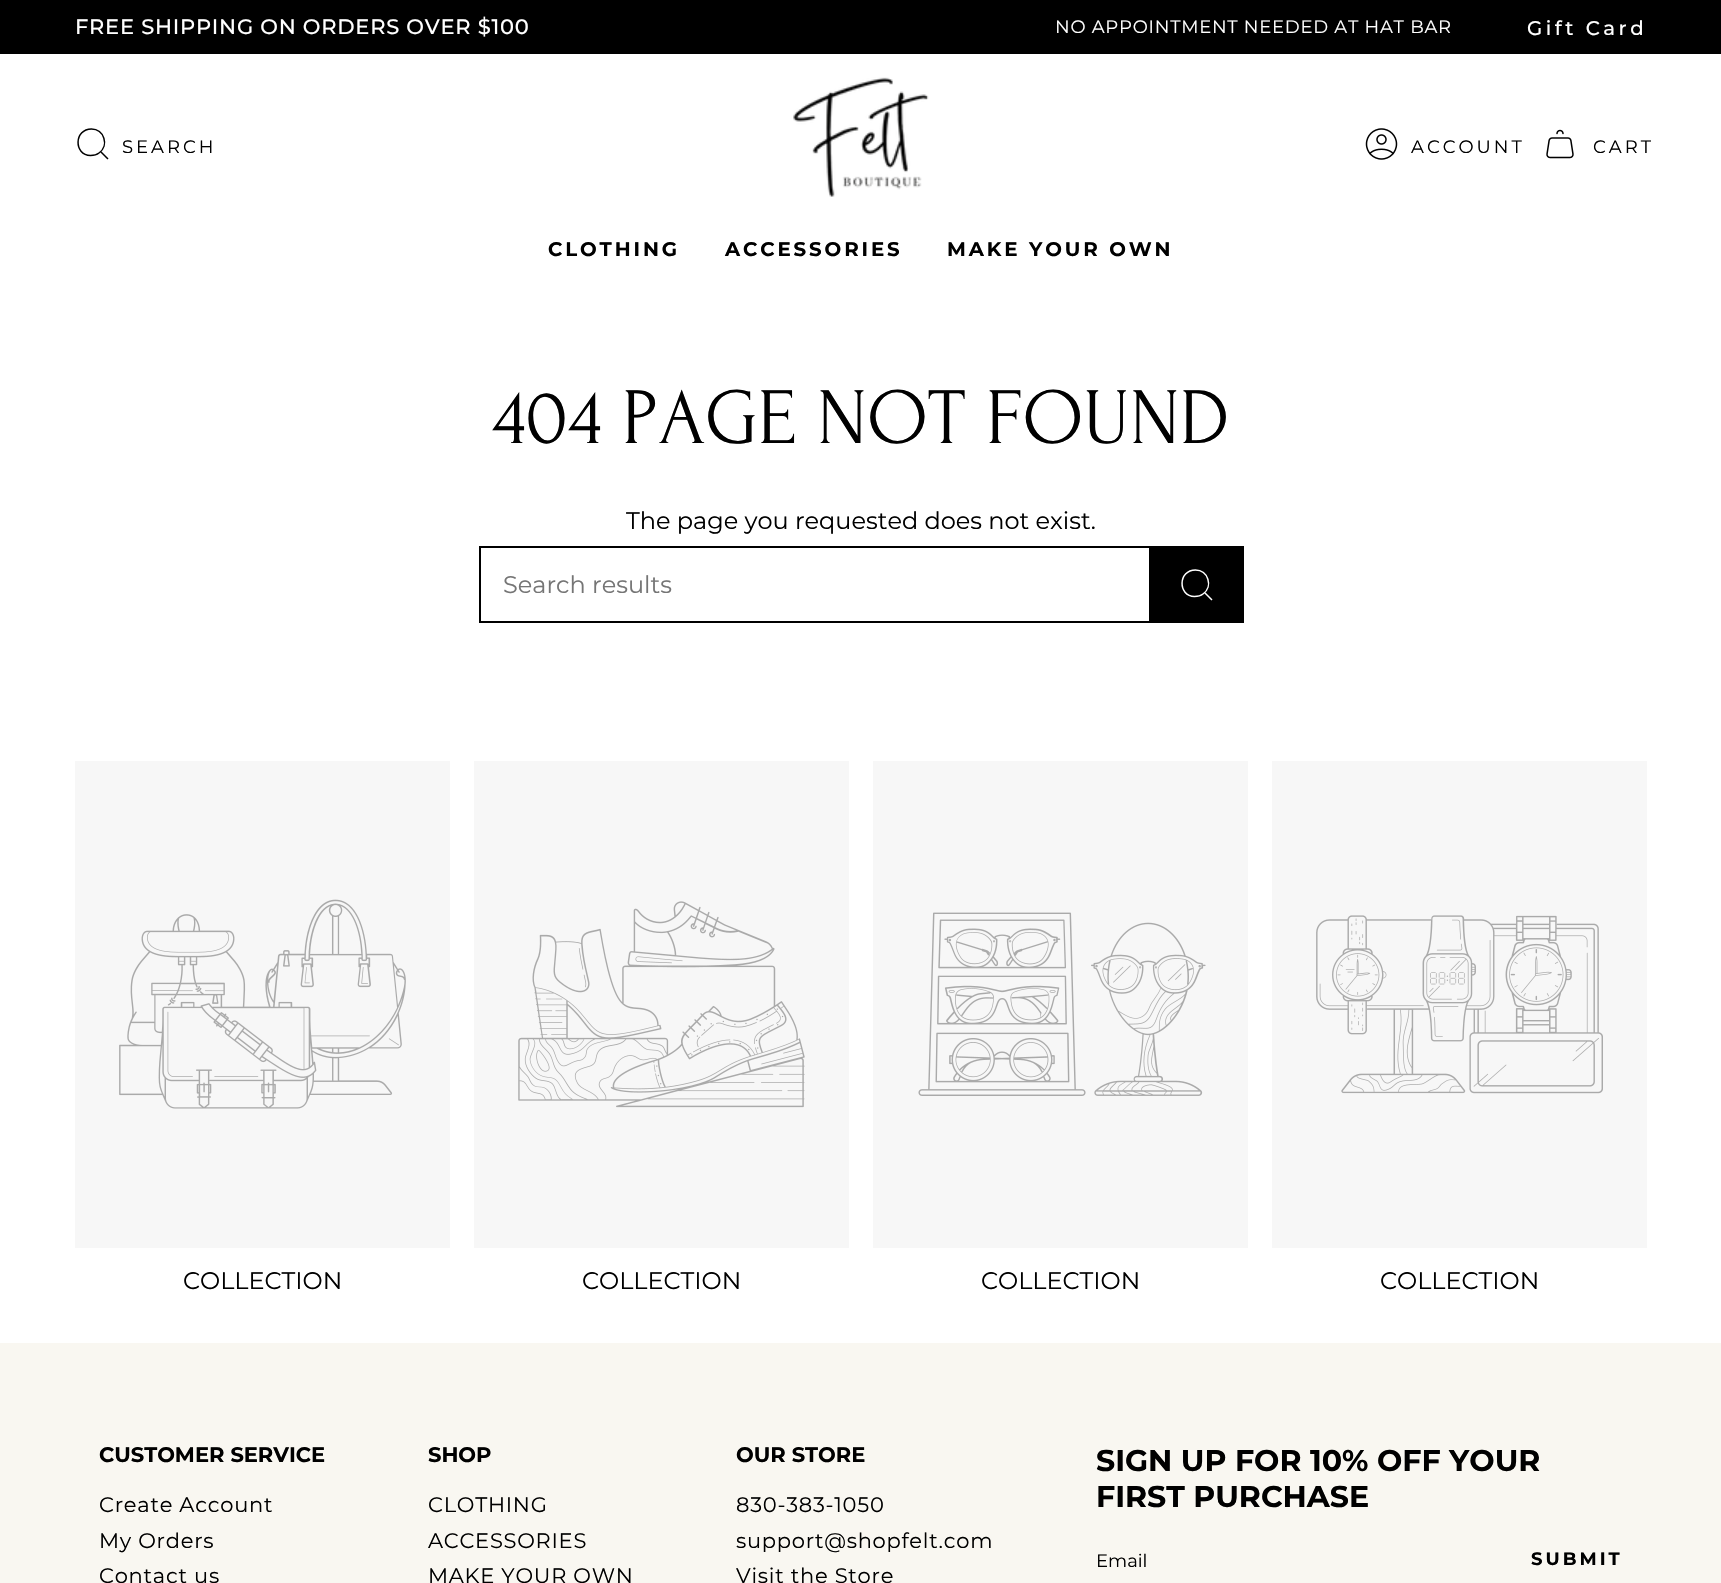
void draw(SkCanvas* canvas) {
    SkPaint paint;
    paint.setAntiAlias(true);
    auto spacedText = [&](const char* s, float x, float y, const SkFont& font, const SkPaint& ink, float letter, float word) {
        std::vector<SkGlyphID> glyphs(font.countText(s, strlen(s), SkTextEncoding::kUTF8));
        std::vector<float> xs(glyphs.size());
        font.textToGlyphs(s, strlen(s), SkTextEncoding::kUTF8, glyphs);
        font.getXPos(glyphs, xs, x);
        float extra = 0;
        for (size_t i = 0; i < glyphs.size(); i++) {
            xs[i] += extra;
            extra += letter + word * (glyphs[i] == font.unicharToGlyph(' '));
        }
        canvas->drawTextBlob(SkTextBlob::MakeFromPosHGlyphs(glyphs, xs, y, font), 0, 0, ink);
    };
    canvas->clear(0xFFFFFFFF);
    paint.setColor(0xFF000000);
    canvas->drawRect(SkRect::MakeXYWH(0, 0, 1721, 54), paint);
    SkFont font1(fontMgr->matchFamilyStyle("Montserrat", SkFontStyle(500, SkFontStyle::kNormal_Width, SkFontStyle::kUpright_Slant)), 21);
    font1.setSubpixel(true);
    paint.setColor(0xFFFFFFFF);
    spacedText("FREE SHIPPING ON ORDERS OVER $100", 75, 34, font1, paint, 0.75f, 0);
    SkFont font2(fontMgr->matchFamilyStyle("Montserrat", SkFontStyle::Normal()), 18);
    font2.setSubpixel(true);
    spacedText("NO APPOINTMENT NEEDED AT HAT BAR", 1055, 33, font2, paint, 0.75f, 0);
    SkFont font3(fontMgr->matchFamilyStyle("Montserrat", SkFontStyle(500, SkFontStyle::kNormal_Width, SkFontStyle::kUpright_Slant)), 19.75f);
    font3.setSubpixel(true);
    spacedText("Gift Card", 1527, 35, font3, paint, 3.5f, 0);
    paint.setStyle(SkPaint::kStroke_Style);
    paint.setStrokeWidth(1.5f);
    paint.setColor(0xFF000000);
    canvas->drawPath(SkPathBuilder().moveTo(91.5f, 129).cubicTo(104, 129, 109.5f, 145.5f, 99, 153).cubicTo(96.5f, 155, 93.5f, 155.5f, 90.5f, 155.5f).cubicTo(73.5f, 155, 74, 129, 91.5f, 129).close().moveTo(100.5f, 151.5f).lineTo(108, 159).detach(), paint);
    paint.setStyle(SkPaint::kFill_Style);
    spacedText("SEARCH", 122, 153, font2, paint, 3, 0);
    canvas->drawImageRect(SkImages::DeferredFromEncodedData(SkData::MakeFromFileName("img1.png")), SkRect::MakeXYWH(793, 77, 136, 120), SkSamplingOptions());
    canvas->drawImageRect(SkImages::DeferredFromEncodedData(SkData::MakeFromFileName("img2.png")), SkRect::MakeXYWH(1365, 128, 33, 32), SkSamplingOptions());
    spacedText("ACCOUNT", 1411, 153, font2, paint, 3, 0);
    canvas->drawImageRect(SkImages::DeferredFromEncodedData(SkData::MakeFromFileName("img3.png")), SkRect::MakeXYWH(1546, 129, 28, 30), SkSamplingOptions());
    spacedText("CART", 1593, 153, font2, paint, 3, 0);
    SkFont font4(fontMgr->matchFamilyStyle("Montserrat", SkFontStyle::Bold()), 19.75f);
    font4.setSubpixel(true);
    spacedText("CLOTHING", 548, 256, font4, paint, 2.9f, 0);
    spacedText("ACCESSORIES", 725, 256, font4, paint, 2.9f, 0);
    spacedText("MAKE YOUR OWN", 947, 256, font4, paint, 2.9f, 0);
    SkFont font5(fontMgr->matchFamilyStyle("Forum", SkFontStyle::Normal()), 79.75f);
    font5.setSubpixel(true);
    canvas->drawString("404 PAGE NOT FOUND", 492, 443, font5, paint);
    SkFont font6(fontMgr->matchFamilyStyle("Montserrat", SkFontStyle::Normal()), 24);
    font6.setSubpixel(true);
    canvas->drawString("The page you requested does not exist.", 626, 529, font6, paint);
    paint.setStyle(SkPaint::kStroke_Style);
    paint.setStrokeWidth(2);
    canvas->drawRect(SkRect::MakeXYWH(480, 547, 670, 75), paint);
    paint.setStyle(SkPaint::kFill_Style);
    paint.setColor(0xFF757575);
    canvas->drawString("Search results", 503, 593, font6, paint);
    paint.setColor(0xFF000000);
    canvas->drawRect(SkRect::MakeXYWH(1151, 546, 93, 77), paint);
    paint.setStyle(SkPaint::kStroke_Style);
    paint.setStrokeWidth(1.5f);
    paint.setColor(0xFFFFFFFF);
    canvas->drawPath(SkPathBuilder().moveTo(1195.5f, 570).cubicTo(1208, 570, 1213.5f, 586.5f, 1203, 594).cubicTo(1200.5f, 596, 1197.5f, 596.5f, 1194.5f, 596.5f).cubicTo(1177.5f, 596, 1178, 570, 1195.5f, 570).close().moveTo(1204.5f, 592.5f).lineTo(1212, 600).detach(), paint);
    paint.setStyle(SkPaint::kFill_Style);
    paint.setColor(0xFFF7F7F7);
    canvas->drawRect(SkRect::MakeXYWH(75, 761, 375, 487), paint);
    canvas->drawImageRect(SkImages::DeferredFromEncodedData(SkData::MakeFromFileName("img4.png")), SkRect::MakeXYWH(119, 899, 287, 210), SkSamplingOptions());
    paint.setColor(0xFF000000);
    canvas->drawString("COLLECTION", 183, 1289, font6, paint);
    paint.setColor(0xFFF7F7F7);
    canvas->drawRect(SkRect::MakeXYWH(474, 761, 375, 487), paint);
    canvas->drawImageRect(SkImages::DeferredFromEncodedData(SkData::MakeFromFileName("img5.png")), SkRect::MakeXYWH(518, 901, 287, 207), SkSamplingOptions());
    paint.setColor(0xFF000000);
    canvas->drawString("COLLECTION", 582, 1289, font6, paint);
    paint.setColor(0xFFF7F7F7);
    canvas->drawRect(SkRect::MakeXYWH(873, 761, 375, 487), paint);
    canvas->drawImageRect(SkImages::DeferredFromEncodedData(SkData::MakeFromFileName("img6.png")), SkRect::MakeXYWH(918, 912, 288, 184), SkSamplingOptions());
    paint.setColor(0xFF000000);
    canvas->drawString("COLLECTION", 981, 1289, font6, paint);
    paint.setColor(0xFFF7F7F7);
    canvas->drawRect(SkRect::MakeXYWH(1272, 761, 375, 487), paint);
    canvas->drawImageRect(SkImages::DeferredFromEncodedData(SkData::MakeFromFileName("img7.png")), SkRect::MakeXYWH(1316, 915, 287, 179), SkSamplingOptions());
    paint.setColor(0xFF000000);
    canvas->drawString("COLLECTION", 1380, 1289, font6, paint);
    paint.setColor(0xFFF9F7F1);
    canvas->drawRect(SkRect::MakeXYWH(0, 1343, 1721, 240), paint);
    SkFont font7(fontMgr->matchFamilyStyle("Montserrat", SkFontStyle::Bold()), 21);
    font7.setSubpixel(true);
    paint.setColor(0xFF000000);
    canvas->drawString("CUSTOMER SERVICE", 99, 1462, font7, paint);
    SkFont font8(fontMgr->matchFamilyStyle("Montserrat", SkFontStyle::Normal()), 21);
    font8.setSubpixel(true);
    spacedText("Create Account", 99, 1512, font8, paint, 0.75f, 0);
    spacedText("My Orders", 99, 1548, font8, paint, 0.75f, 0);
    spacedText("Contact us", 99, 1583, font8, paint, 0.75f, 0);
    canvas->drawString("SHOP", 428, 1462, font7, paint);
    spacedText("CLOTHING", 428, 1512, font8, paint, 0.75f, 0);
    spacedText("ACCESSORIES", 428, 1548, font8, paint, 0.75f, 0);
    spacedText("MAKE YOUR OWN", 428, 1583, font8, paint, 0.75f, 0);
    canvas->drawString("OUR STORE", 736, 1462, font7, paint);
    spacedText("830-383-1050", 736, 1512, font8, paint, 0.75f, 0);
    spacedText("support@shopfelt.com", 736, 1548, font8, paint, 0.75f, 0);
    spacedText("Visit the Store", 736, 1583, font8, paint, 0.75f, 0);
    SkFont font9(fontMgr->matchFamilyStyle("Montserrat", SkFontStyle::Bold()), 30);
    font9.setSubpixel(true);
    canvas->drawString("SIGN UP FOR 10% OFF YOUR", 1096, 1471, font9, paint);
    canvas->drawString("FIRST PURCHASE", 1096, 1507, font9, paint);
    canvas->drawString("Email", 1096, 1567, font2, paint);
    SkFont font10(fontMgr->matchFamilyStyle("Montserrat", SkFontStyle::Bold()), 18);
    font10.setSubpixel(true);
    spacedText("SUBMIT", 1531, 1565, font10, paint, 3, 0);
}
